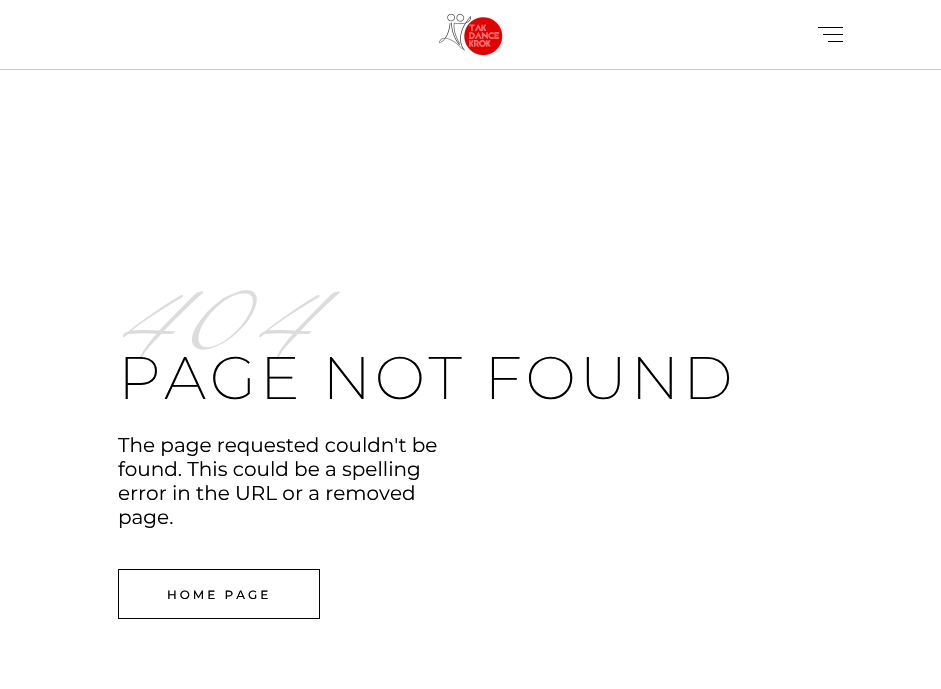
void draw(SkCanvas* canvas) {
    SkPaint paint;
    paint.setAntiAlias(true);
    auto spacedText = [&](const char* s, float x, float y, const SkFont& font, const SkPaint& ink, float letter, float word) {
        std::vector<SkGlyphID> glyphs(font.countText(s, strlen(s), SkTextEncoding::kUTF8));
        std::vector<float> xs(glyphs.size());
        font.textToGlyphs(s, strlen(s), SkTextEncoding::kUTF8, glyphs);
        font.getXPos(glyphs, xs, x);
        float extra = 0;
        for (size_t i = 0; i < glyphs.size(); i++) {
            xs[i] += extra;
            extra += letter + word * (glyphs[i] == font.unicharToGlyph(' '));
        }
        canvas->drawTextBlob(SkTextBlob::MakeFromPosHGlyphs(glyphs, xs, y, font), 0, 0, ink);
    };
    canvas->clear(0xFFFFFFFF);
    paint.setColor(0xFFC8C8C8);
    canvas->drawRect(SkRect::MakeXYWH(0, 69, 941, 1), paint);
    canvas->drawImageRect(SkImages::DeferredFromEncodedData(SkData::MakeFromFileName("img1.png")), SkRect::MakeXYWH(439, 13, 64, 43), SkSamplingOptions());
    paint.setColor(0xFF000000);
    canvas->drawRect(SkRect::MakeXYWH(818, 27, 25, 1), paint);
    canvas->drawRect(SkRect::MakeXYWH(823, 34, 20, 1), paint);
    canvas->drawRect(SkRect::MakeXYWH(828, 41, 15, 1), paint);
    SkFont font1(fontMgr->matchFamilyStyle("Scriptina", SkFontStyle::Italic()), 110);
    font1.setSubpixel(true);
    paint.setColor(0xFFDDDCDC);
    spacedText("404", 118, 348, font1, paint, 8, 0);
    SkFont font2(fontMgr->matchFamilyStyle("Montserrat", SkFontStyle(200, SkFontStyle::kNormal_Width, SkFontStyle::kUpright_Slant)), 60);
    font2.setSubpixel(true);
    paint.setColor(0xFF000000);
    spacedText("PAGE NOT FOUND", 118, 399, font2, paint, 3.6f, 0);
    SkFont font3(fontMgr->matchFamilyStyle("Montserrat", SkFontStyle::Normal()), 20);
    font3.setSubpixel(true);
    canvas->drawString("The page requested couldn't be", 118, 452, font3, paint);
    canvas->drawString("found. This could be a spelling", 118, 476, font3, paint);
    canvas->drawString("error in the URL or a removed", 118, 500, font3, paint);
    canvas->drawString("page.", 118, 524, font3, paint);
    paint.setStyle(SkPaint::kStroke_Style);
    paint.setStrokeWidth(1);
    canvas->drawRect(SkRect::MakeXYWH(118.5f, 569.5f, 201, 49), paint);
    SkFont font4(fontMgr->matchFamilyStyle("Montserrat", SkFontStyle(500, SkFontStyle::kNormal_Width, SkFontStyle::kUpright_Slant)), 12);
    font4.setSubpixel(true);
    paint.setStyle(SkPaint::kFill_Style);
    spacedText("HOME PAGE", 167, 599, font4, paint, 3, 0);
}
